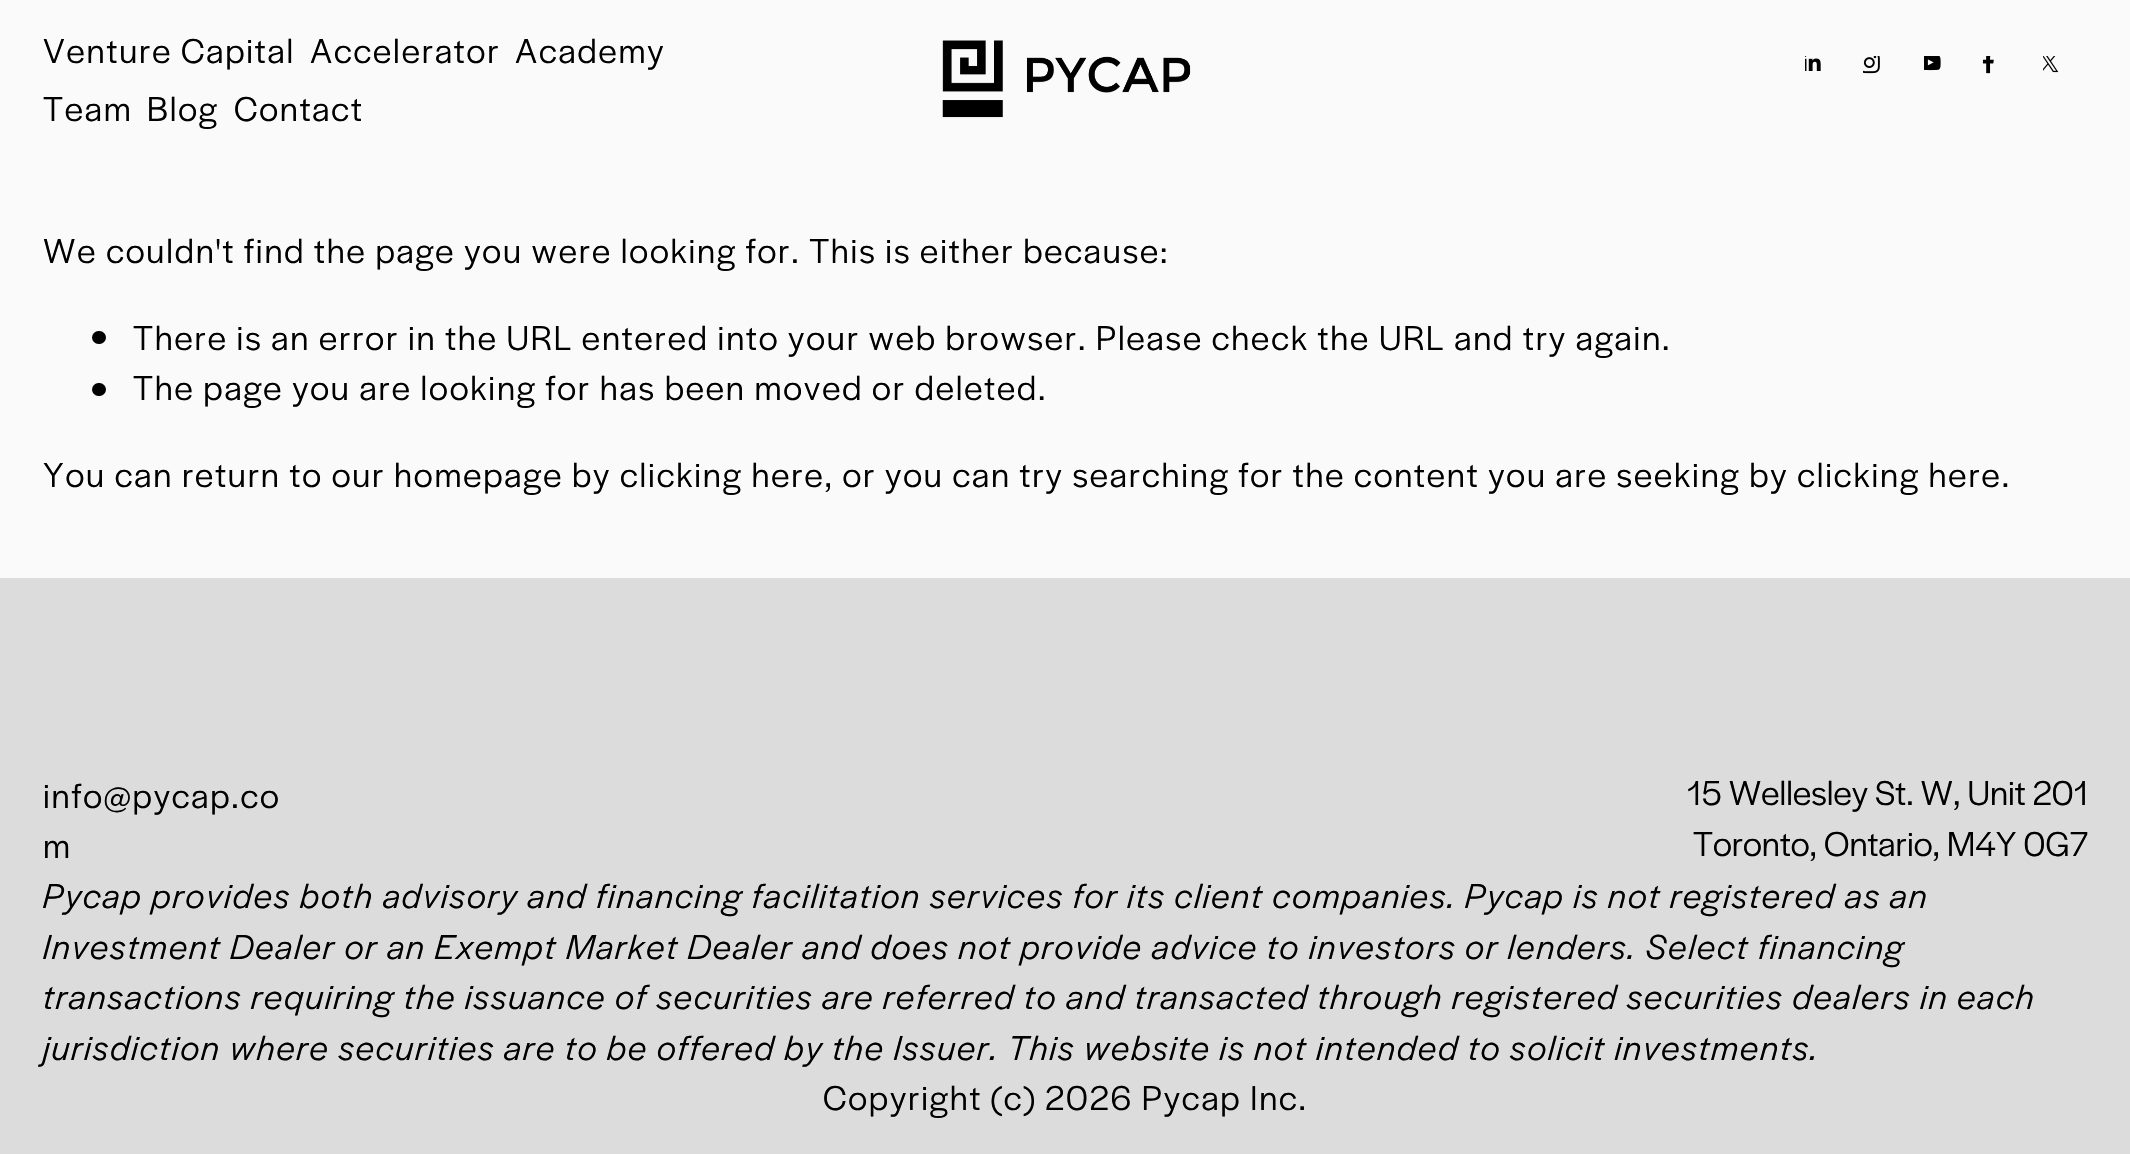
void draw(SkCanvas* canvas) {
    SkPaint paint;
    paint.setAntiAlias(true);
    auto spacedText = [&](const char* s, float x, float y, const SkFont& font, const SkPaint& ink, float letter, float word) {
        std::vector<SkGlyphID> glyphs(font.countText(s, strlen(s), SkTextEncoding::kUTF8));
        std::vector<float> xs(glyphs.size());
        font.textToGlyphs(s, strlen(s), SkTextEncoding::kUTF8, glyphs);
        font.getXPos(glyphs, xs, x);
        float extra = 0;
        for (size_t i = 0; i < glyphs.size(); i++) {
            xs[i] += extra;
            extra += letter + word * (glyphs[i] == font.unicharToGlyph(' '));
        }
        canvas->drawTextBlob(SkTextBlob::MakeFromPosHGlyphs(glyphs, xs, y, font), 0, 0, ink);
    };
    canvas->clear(0xFFFAFAFA);
    SkFont font1(fontMgr->matchFamilyStyle("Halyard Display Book", SkFontStyle::Normal()), 36);
    font1.setSubpixel(true);
    paint.setColor(0xFF000000);
    spacedText("Venture Capital", 43, 63, font1, paint, 1.8f, 0);
    spacedText("Accelerator", 310, 63, font1, paint, 1.8f, 0);
    spacedText("Academy", 515, 63, font1, paint, 1.8f, 0);
    spacedText("Team", 43, 121, font1, paint, 1.8f, 0);
    spacedText("Blog", 147, 121, font1, paint, 1.8f, 0);
    spacedText("Contact", 234, 121, font1, paint, 1.8f, 0);
    canvas->drawImageRect(SkImages::DeferredFromEncodedData(SkData::MakeFromFileName("img1.png")), SkRect::MakeXYWH(942, 40, 249, 78), SkSamplingOptions());
    canvas->drawImageRect(SkImages::DeferredFromEncodedData(SkData::MakeFromFileName("img2.png")), SkRect::MakeXYWH(1805, 56, 16, 15), SkSamplingOptions());
    canvas->drawImageRect(SkImages::DeferredFromEncodedData(SkData::MakeFromFileName("img3.png")), SkRect::MakeXYWH(1863, 56, 17, 18), SkSamplingOptions());
    canvas->drawImageRect(SkImages::DeferredFromEncodedData(SkData::MakeFromFileName("img4.png")), SkRect::MakeXYWH(1924, 56, 17, 15), SkSamplingOptions());
    canvas->drawImageRect(SkImages::DeferredFromEncodedData(SkData::MakeFromFileName("img5.png")), SkRect::MakeXYWH(1982, 56, 12, 18), SkSamplingOptions());
    canvas->drawImageRect(SkImages::DeferredFromEncodedData(SkData::MakeFromFileName("img6.png")), SkRect::MakeXYWH(2043, 56, 16, 17), SkSamplingOptions());
    spacedText("We couldn't find the page you were looking for. This is either because:", 43, 263, font1, paint, 1.8f, 0);
    canvas->drawRoundRect(SkRect::MakeXYWH(92, 331, 14, 13), 6.5f, 6.5f, paint);
    spacedText("There is an error in the URL entered into your web browser. Please check the URL and try again.", 133, 350, font1, paint, 1.8f, 0);
    canvas->drawRoundRect(SkRect::MakeXYWH(92, 383, 14, 13), 6.5f, 6.5f, paint);
    spacedText("The page you are looking for has been moved or deleted.", 133, 400, font1, paint, 1.8f, 0);
    spacedText("You can return to our homepage by clicking here, or you can try searching for the content you are seeking by clicking here.", 43, 487, font1, paint, 1.8f, 0);
    paint.setColor(0xFFDCDCDC);
    canvas->drawRect(SkRect::MakeXYWH(0, 578, 2130, 576), paint);
    paint.setColor(0xFF000000);
    spacedText("info@pycap.co", 43, 808, font1, paint, 1.8f, 0);
    spacedText("m", 43, 858, font1, paint, 1.8f, 0);
    canvas->drawString("15 Wellesley St. W, Unit 201", 1687, 805, font1, paint);
    canvas->drawString("Toronto, Ontario, M4Y 0G7", 1693, 856, font1, paint);
    SkFont font2(fontMgr->matchFamilyStyle("Halyard Display Book", SkFontStyle::Italic()), 36);
    font2.setSubpixel(true);
    spacedText("Pycap provides both advisory and financing facilitation services for its client companies. Pycap is not registered as an", 43, 908, font2, paint, 1.8f, 0);
    spacedText("Investment Dealer or an Exempt Market Dealer and does not provide advice to investors or lenders. Select financing", 43, 959, font2, paint, 1.8f, 0);
    spacedText("transactions requiring the issuance of securities are referred to and transacted through registered securities dealers in each", 43, 1009, font2, paint, 1.8f, 0);
    spacedText("jurisdiction where securities are to be offered by the Issuer. This website is not intended to solicit investments.", 43, 1060, font2, paint, 1.8f, 0);
    spacedText("Copyright (c) 2026 Pycap Inc.", 823, 1110, font1, paint, 1.8f, 0);
}
